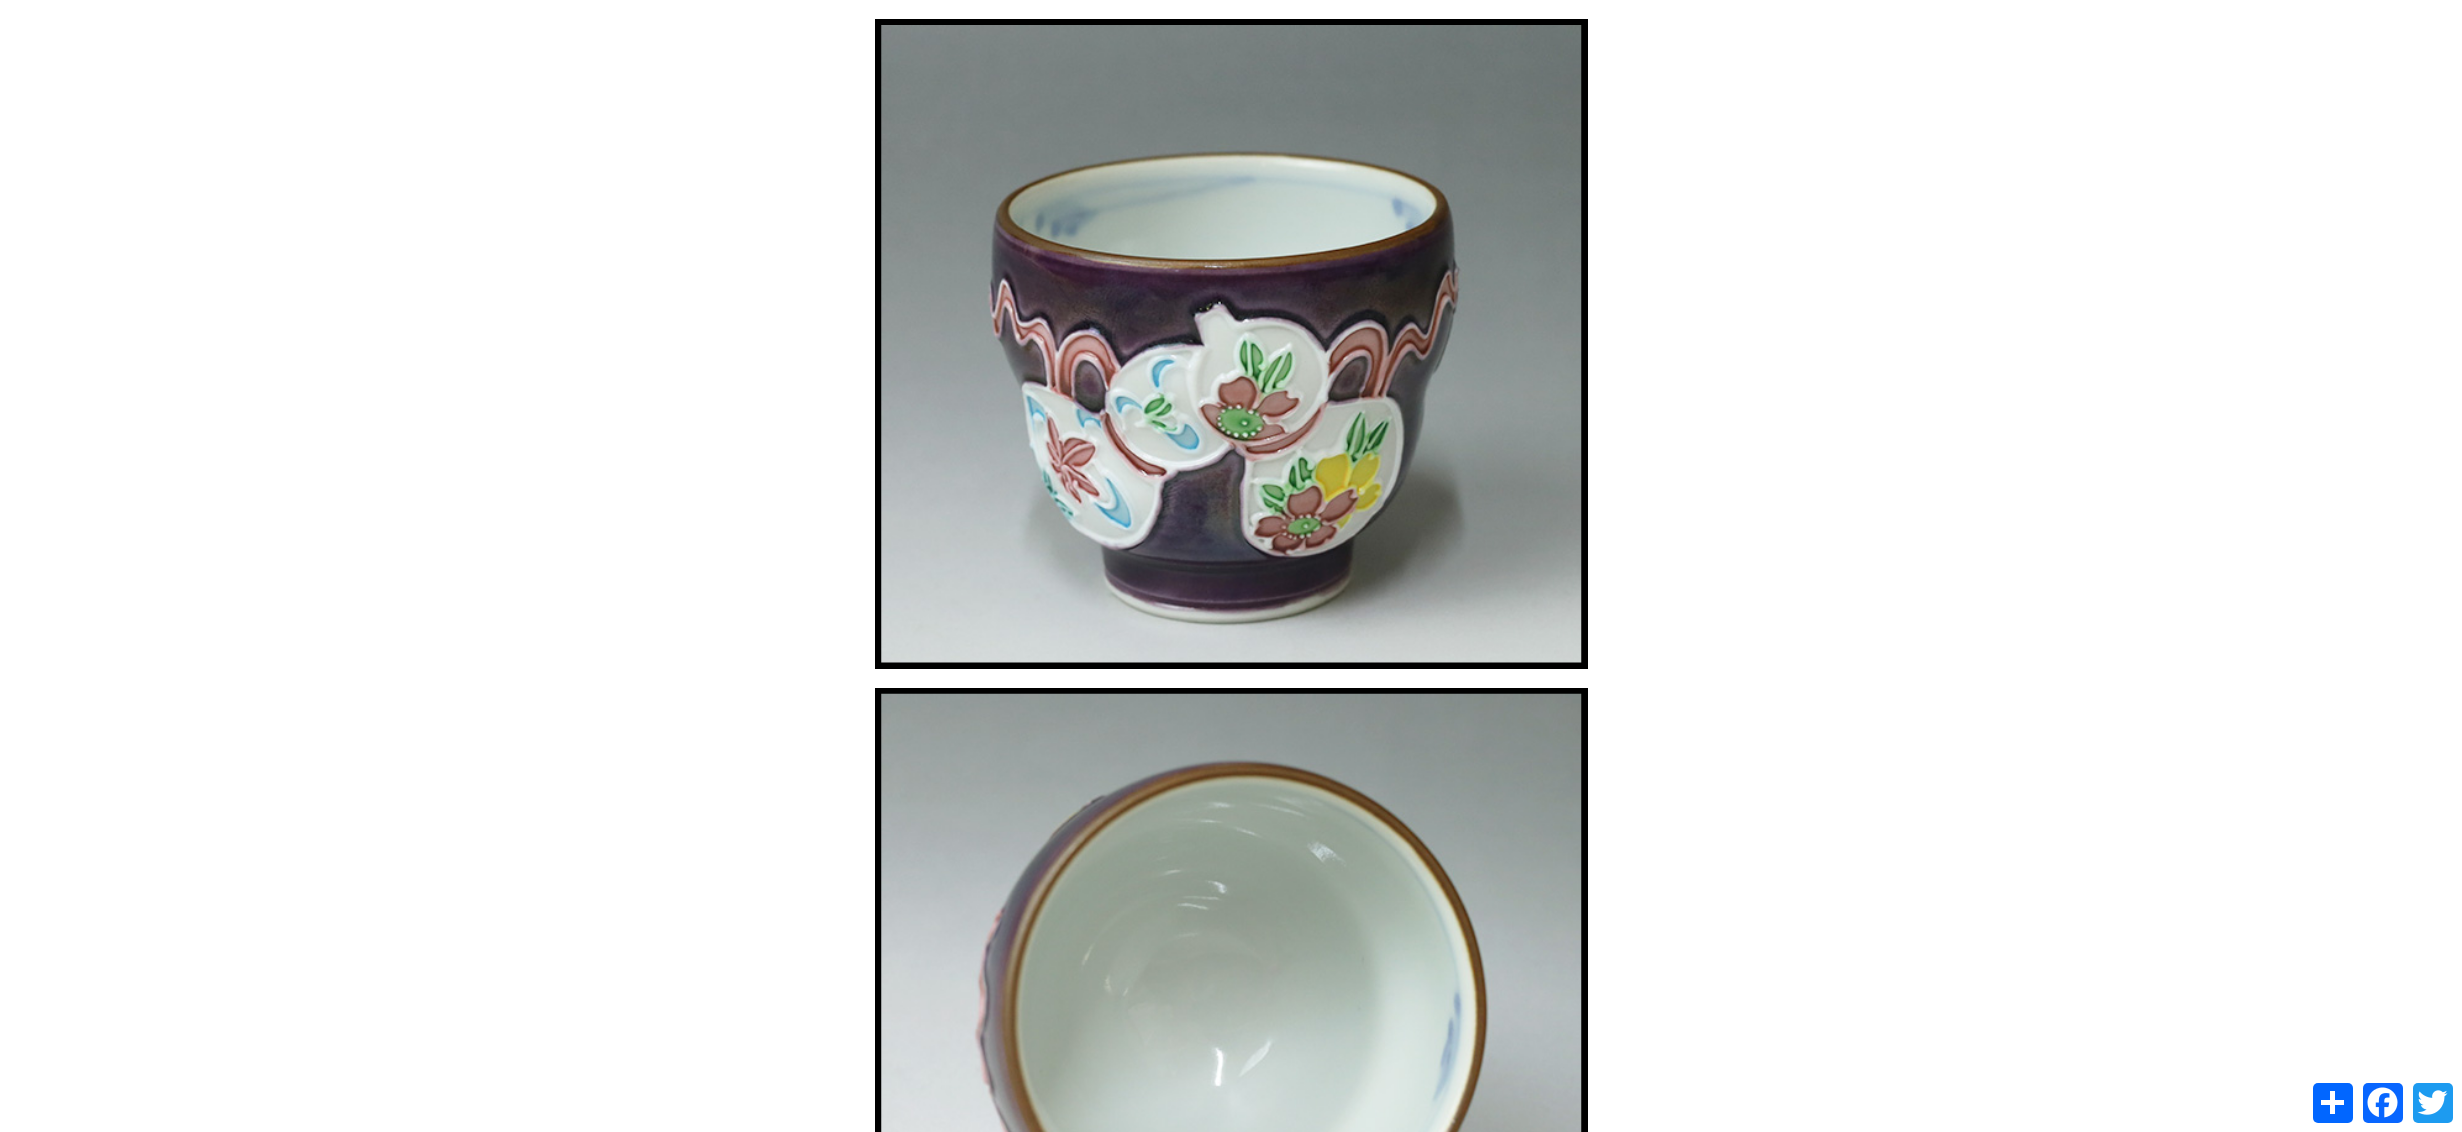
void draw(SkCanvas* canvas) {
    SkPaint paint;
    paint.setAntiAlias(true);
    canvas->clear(0xFFFFFFFF);
    paint.setColor(0xFF000000);
    canvas->drawRect(SkRect::MakeXYWH(875, 19, 713, 650), paint);
    canvas->drawImageRect(SkImages::DeferredFromEncodedData(SkData::MakeFromFileName("img1.png")), SkRect::MakeXYWH(881, 25, 701, 638), SkSamplingOptions());
    canvas->drawRect(SkRect::MakeXYWH(875, 688, 713, 444), paint);
    canvas->drawImageRect(SkImages::DeferredFromEncodedData(SkData::MakeFromFileName("img2.png")), SkRect::MakeXYWH(881, 693, 701, 439), SkSamplingOptions());
    paint.setColor(0xFF0166FF);
    canvas->drawRoundRect(SkRect::MakeXYWH(2313, 1083, 40, 40), 5, 5, paint);
    paint.setColor(0xFFFFFFFF);
    canvas->drawRect(SkRect::MakeXYWH(2330, 1091, 5, 23), paint);
    canvas->drawRect(SkRect::MakeXYWH(2321, 1100, 23, 5), paint);
    paint.setColor(0xFF0866FF);
    canvas->drawRoundRect(SkRect::MakeXYWH(2363, 1083, 40, 40), 5, 5, paint);
    canvas->drawImageRect(SkImages::DeferredFromEncodedData(SkData::MakeFromFileName("img3.png")), SkRect::MakeXYWH(2367, 1087, 31, 31), SkSamplingOptions());
    paint.setColor(0xFF1D9BF0);
    canvas->drawRoundRect(SkRect::MakeXYWH(2413, 1083, 40, 40), 5, 5, paint);
    canvas->drawImageRect(SkImages::DeferredFromEncodedData(SkData::MakeFromFileName("img4.png")), SkRect::MakeXYWH(2417, 1090, 31, 25), SkSamplingOptions());
}
